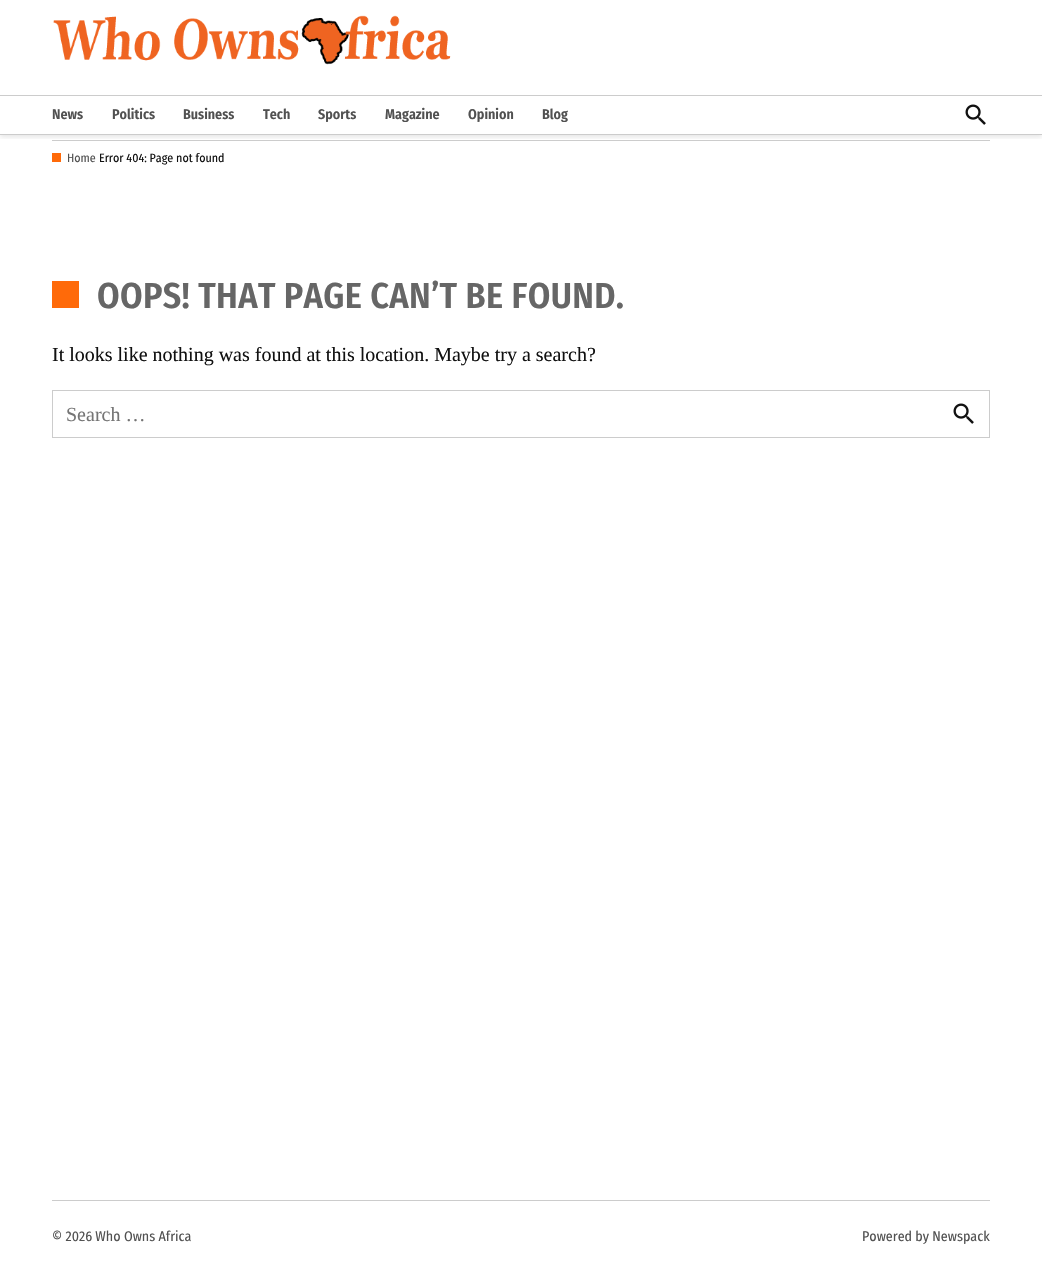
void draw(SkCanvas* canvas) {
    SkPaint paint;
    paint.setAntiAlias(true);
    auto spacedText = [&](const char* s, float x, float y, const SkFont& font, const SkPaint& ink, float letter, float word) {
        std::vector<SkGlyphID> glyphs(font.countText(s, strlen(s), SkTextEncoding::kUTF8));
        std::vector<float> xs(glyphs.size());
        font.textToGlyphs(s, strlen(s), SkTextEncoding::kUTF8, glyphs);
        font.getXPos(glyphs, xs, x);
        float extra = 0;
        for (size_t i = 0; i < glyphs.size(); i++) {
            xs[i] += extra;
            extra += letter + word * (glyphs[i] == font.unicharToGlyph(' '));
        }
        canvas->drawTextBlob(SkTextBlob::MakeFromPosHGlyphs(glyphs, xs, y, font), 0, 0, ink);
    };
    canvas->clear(0xFFFFFFFF);
    paint.setColor(0xFFCCCCCC);
    canvas->drawRect(SkRect::MakeXYWH(52, 140, 938, 1), paint);
    canvas->save();
    canvas->clipRect(SkRect::MakeXYWH(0, 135, 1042, 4));
    paint.setColor(0x1A000000);
    paint.setMaskFilter(SkMaskFilter::MakeBlur(kNormal_SkBlurStyle, 2.5f));
    canvas->drawRect(SkRect::MakeXYWH(0, 2, 1042, 135), paint);
    paint.setMaskFilter(nullptr);
    canvas->restore();
    canvas->drawImageRect(SkImages::DeferredFromEncodedData(SkData::MakeFromFileName("img1.png")), SkRect::MakeXYWH(53, 15, 398, 50), SkSamplingOptions());
    paint.setColor(0xFFCCCCCC);
    canvas->drawRect(SkRect::MakeXYWH(0, 95, 1042, 1), paint);
    canvas->drawRect(SkRect::MakeXYWH(0, 134, 1042, 1), paint);
    SkFont font1(fontMgr->matchFamilyStyle("Fira Sans Condensed", SkFontStyle(600, SkFontStyle::kNormal_Width, SkFontStyle::kUpright_Slant)), 14);
    font1.setSubpixel(true);
    paint.setColor(0xFF515151);
    canvas->drawString("News", 52, 119, font1, paint);
    canvas->drawString("Politics", 112, 119, font1, paint);
    canvas->drawString("Business", 183, 119, font1, paint);
    canvas->drawString("Tech", 263, 119, font1, paint);
    canvas->drawString("Sports", 318, 119, font1, paint);
    canvas->drawString("Magazine", 385, 119, font1, paint);
    canvas->drawString("Opinion", 468, 119, font1, paint);
    canvas->drawString("Blog", 542, 119, font1, paint);
    canvas->drawImageRect(SkImages::DeferredFromEncodedData(SkData::MakeFromFileName("img2.png")), SkRect::MakeXYWH(965, 104, 21, 21), SkSamplingOptions());
    paint.setColor(0xFFFF6A09);
    canvas->drawRect(SkRect::MakeXYWH(52, 153, 9, 9), paint);
    SkFont font2(fontMgr->matchFamilyStyle("Fira Sans Condensed", SkFontStyle::Normal()), 12);
    font2.setSubpixel(true);
    paint.setColor(0xFF515151);
    canvas->drawString("Home", 67, 162, font2, paint);
    paint.setColor(0xFF111111);
    canvas->drawString("Error 404: Page not found", 99, 162, font2, paint);
    paint.setColor(0xFFFF6A09);
    canvas->drawRect(SkRect::MakeXYWH(52, 281, 27, 27), paint);
    SkFont font3(fontMgr->matchFamilyStyle("Fira Sans Condensed", SkFontStyle(600, SkFontStyle::kNormal_Width, SkFontStyle::kUpright_Slant)), 36);
    font3.setSubpixel(true);
    paint.setColor(0xFF666666);
    spacedText("OOPS! THAT PAGE CAN’T BE FOUND.", 97, 308, font3, paint, 0.35f, 0);
    SkFont font4(fontMgr->matchFamilyStyle("Liberation Serif", SkFontStyle::Normal()), 20);
    font4.setSubpixel(true);
    paint.setColor(0xFF111111);
    canvas->drawString("It looks like nothing was found at this location. Maybe try a search?", 52, 361, font4, paint);
    paint.setStyle(SkPaint::kStroke_Style);
    paint.setStrokeWidth(1);
    paint.setColor(0xFFCCCCCC);
    canvas->drawRect(SkRect::MakeXYWH(52.5f, 390.5f, 937, 47), paint);
    paint.setStyle(SkPaint::kFill_Style);
    paint.setColor(0xFF757575);
    canvas->drawString("Search …", 66, 421, font4, paint);
    canvas->drawImageRect(SkImages::DeferredFromEncodedData(SkData::MakeFromFileName("img2.png")), SkRect::MakeXYWH(953, 403, 21, 21), SkSamplingOptions());
    paint.setColor(0xFFCCCCCC);
    canvas->drawRect(SkRect::MakeXYWH(52, 1200, 938, 1), paint);
    SkFont font5(fontMgr->matchFamilyStyle("Fira Sans Condensed", SkFontStyle::Normal()), 14);
    font5.setSubpixel(true);
    paint.setColor(0xFF515151);
    canvas->drawString("© 2026 Who Owns Africa", 52, 1241, font5, paint);
    canvas->drawString("Powered by Newspack", 862, 1241, font5, paint);
}
